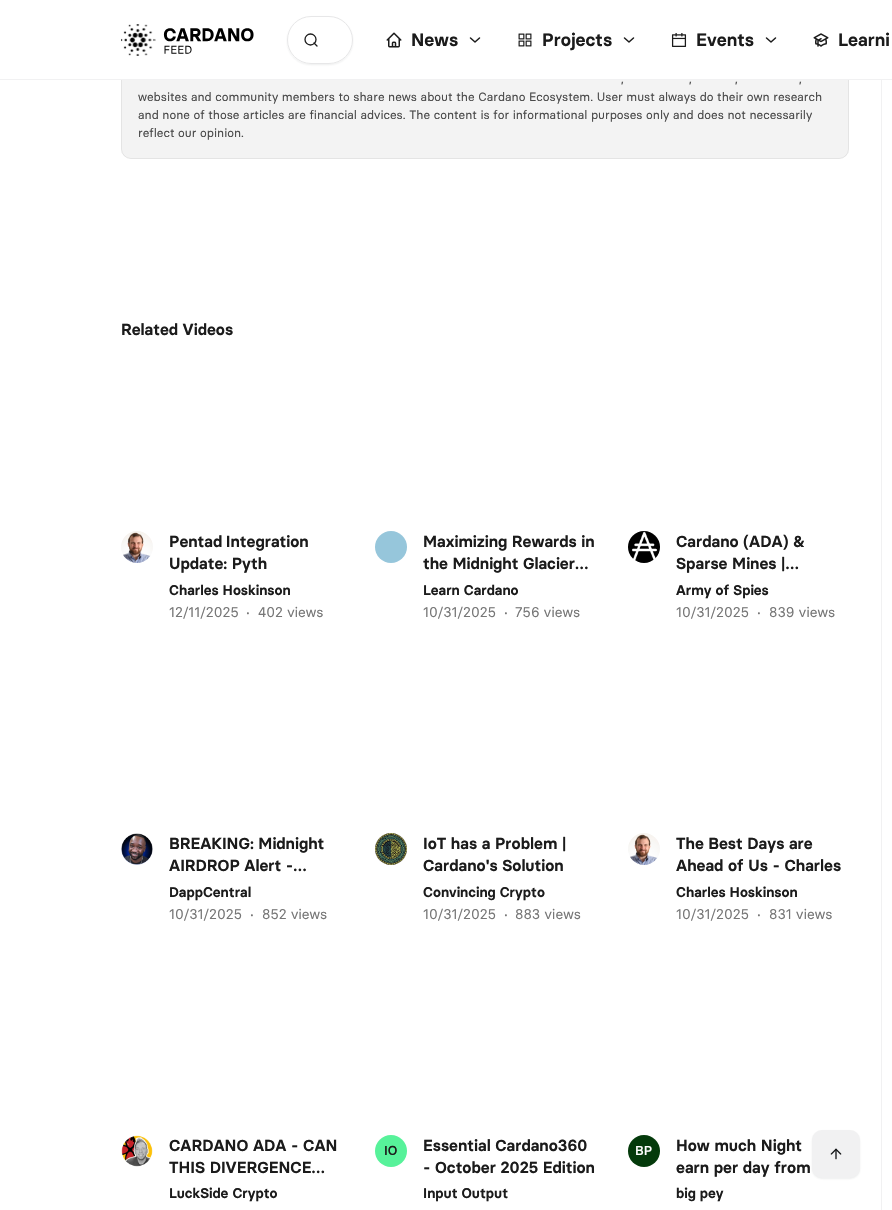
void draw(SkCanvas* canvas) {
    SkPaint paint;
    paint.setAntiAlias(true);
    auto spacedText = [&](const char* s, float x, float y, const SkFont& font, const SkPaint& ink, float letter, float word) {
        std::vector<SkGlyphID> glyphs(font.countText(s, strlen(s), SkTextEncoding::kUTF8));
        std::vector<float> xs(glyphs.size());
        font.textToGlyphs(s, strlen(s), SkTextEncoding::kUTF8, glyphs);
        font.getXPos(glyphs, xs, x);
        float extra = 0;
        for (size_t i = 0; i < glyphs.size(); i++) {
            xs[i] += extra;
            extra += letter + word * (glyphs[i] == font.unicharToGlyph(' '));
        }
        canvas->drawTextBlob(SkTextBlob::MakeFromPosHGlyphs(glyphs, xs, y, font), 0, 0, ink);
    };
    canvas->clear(0xFFFFFFFF);
    paint.setColor(0xFFF3F3F3);
    canvas->drawRoundRect(SkRect::MakeXYWH(121, 53, 728, 106), 10, 10, paint);
    paint.setStyle(SkPaint::kStroke_Style);
    paint.setStrokeWidth(1);
    paint.setColor(0x14333333);
    canvas->drawRoundRect(SkRect::MakeXYWH(121.5f, 53.5f, 727, 105), 9.5f, 9.5f, paint);
    paint.setStyle(SkPaint::kFill_Style);
    paint.setColor(0xFFFFFFFF);
    canvas->drawRect(SkRect::MakeXYWH(121, 53, 728, 26), paint);
    paint.setColor(0xFFF1F1F2);
    canvas->drawRect(SkRect::MakeXYWH(0, 79, 892, 1), paint);
    canvas->drawImageRect(SkImages::DeferredFromEncodedData(SkData::MakeFromFileName("img1.png")), SkRect::MakeXYWH(121, 24, 133, 32), SkSamplingOptions());
    canvas->save();
    canvas->clipPath(SkPathBuilder(SkPathFillType::kEvenOdd).moveTo(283, 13).lineTo(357, 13).lineTo(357, 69).lineTo(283, 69).close().moveTo(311, 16).lineTo(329, 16).cubicTo(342.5f, 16, 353, 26.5f, 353, 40).cubicTo(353, 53.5f, 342.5f, 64, 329, 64).lineTo(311, 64).cubicTo(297.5f, 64, 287, 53.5f, 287, 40).cubicTo(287, 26.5f, 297.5f, 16, 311, 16).close().detach(), true);
    paint.setColor(0x141F282C);
    paint.setMaskFilter(SkMaskFilter::MakeBlur(kNormal_SkBlurStyle, 1));
    canvas->drawRoundRect(SkRect::MakeXYWH(287, 17, 66, 48), 24, 24, paint);
    paint.setMaskFilter(nullptr);
    canvas->restore();
    paint.setColor(0xCCFFFFFF);
    canvas->drawRoundRect(SkRect::MakeXYWH(287.5f, 16.5f, 65, 47), 23.5f, 23.5f, paint);
    paint.setStyle(SkPaint::kStroke_Style);
    paint.setColor(0xFFE7E7E8);
    canvas->drawRoundRect(SkRect::MakeXYWH(287.5f, 16.5f, 65, 47), 23.5f, 23.5f, paint);
    paint.setStrokeWidth(1.3f);
    paint.setColor(0xFF1B1B1B);
    canvas->drawCircle(310.5f, 39.5f, 5.5f, paint);
    paint.setStrokeCap(SkPaint::kRound_Cap);
    paint.setStrokeJoin(SkPaint::kRound_Join);
    canvas->drawPath(SkPathBuilder().moveTo(317, 46).lineTo(314, 43).detach(), paint);
    canvas->drawImageRect(SkImages::DeferredFromEncodedData(SkData::MakeFromFileName("img2.png")), SkRect::MakeXYWH(386, 32, 16, 16), SkSamplingOptions());
    SkFont font1(fontMgr->matchFamilyStyle("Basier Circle", SkFontStyle(600, SkFontStyle::kNormal_Width, SkFontStyle::kUpright_Slant)), 18);
    font1.setSubpixel(true);
    paint.setStyle(SkPaint::kFill_Style);
    canvas->drawString("News", 411, 46, font1, paint);
    paint.setStyle(SkPaint::kStroke_Style);
    paint.setStrokeWidth(1.5f);
    canvas->drawPath(SkPathBuilder().moveTo(470.5f, 38).lineTo(475, 42).lineTo(479.5f, 38).detach(), paint);
    canvas->drawImageRect(SkImages::DeferredFromEncodedData(SkData::MakeFromFileName("img3.png")), SkRect::MakeXYWH(518, 33, 14, 14), SkSamplingOptions());
    paint.setStyle(SkPaint::kFill_Style);
    canvas->drawString("Projects", 542, 46, font1, paint);
    paint.setStyle(SkPaint::kStroke_Style);
    canvas->drawPath(SkPathBuilder().moveTo(624.5f, 38).lineTo(629, 42).lineTo(633.5f, 38).detach(), paint);
    canvas->drawImageRect(SkImages::DeferredFromEncodedData(SkData::MakeFromFileName("img4.png")), SkRect::MakeXYWH(671, 33, 16, 14), SkSamplingOptions());
    paint.setStyle(SkPaint::kFill_Style);
    canvas->drawString("Events", 696, 46, font1, paint);
    paint.setStyle(SkPaint::kStroke_Style);
    canvas->drawPath(SkPathBuilder().moveTo(766.5f, 38).lineTo(771, 42).lineTo(775.5f, 38).detach(), paint);
    canvas->drawImageRect(SkImages::DeferredFromEncodedData(SkData::MakeFromFileName("img5.png")), SkRect::MakeXYWH(813, 33, 16, 14), SkSamplingOptions());
    paint.setStyle(SkPaint::kFill_Style);
    canvas->drawString("Learni", 838, 46, font1, paint);
    SkFont font2(fontMgr->matchFamilyStyle("Basier Circle", SkFontStyle::Normal()), 12);
    font2.setSubpixel(true);
    paint.setColor(0xFF494949);
    canvas->drawString(",", 621, 83, font2, paint);
    canvas->drawString(",", 689, 83, font2, paint);
    canvas->drawString(",", 735, 83, font2, paint);
    canvas->drawString(",", 799, 83, font2, paint);
    canvas->drawString("websites and community members to share news about the Cardano Ecosystem. User must always do their own research", 138, 101, font2, paint);
    canvas->drawString("and none of those articles are financial advices. The content is for informational purposes only and does not necessarily", 138, 119, font2, paint);
    canvas->drawString("reflect our opinion.", 138, 137, font2, paint);
    SkFont font3(fontMgr->matchFamilyStyle("Basier Circle", SkFontStyle(600, SkFontStyle::kNormal_Width, SkFontStyle::kUpright_Slant)), 16);
    font3.setSubpixel(true);
    paint.setColor(0xFF1B1B1B);
    canvas->drawString("Related Videos", 121, 335, font3, paint);
    canvas->drawImageRect(SkImages::DeferredFromEncodedData(SkData::MakeFromFileName("img6.png")), SkRect::MakeXYWH(121, 531, 32, 32), SkSamplingOptions());
    spacedText("Pentad Integration", 169, 547, font3, paint, 0, -1);
    canvas->drawString("Update: Pyth", 169, 569, font3, paint);
    SkFont font4(fontMgr->matchFamilyStyle("Basier Circle", SkFontStyle(600, SkFontStyle::kNormal_Width, SkFontStyle::kUpright_Slant)), 14);
    font4.setSubpixel(true);
    canvas->drawString("Charles Hoskinson", 169, 595, font4, paint);
    SkFont font5(fontMgr->matchFamilyStyle("Basier Circle", SkFontStyle::Normal()), 14);
    font5.setSubpixel(true);
    paint.setColor(0xFF767676);
    canvas->drawString("12/11/2025", 169, 617, font5, paint);
    SkFont font6(fontMgr->matchFamilyStyle("Basier Circle", SkFontStyle::Normal()), 16);
    font6.setSubpixel(true);
    canvas->drawString("·", 246, 618, font6, paint);
    canvas->drawString("402 views", 258, 617, font5, paint);
    paint.setColor(0xFF96C6DB);
    canvas->drawCircle(391, 547, 16, paint);
    paint.setColor(0xFF1B1B1B);
    canvas->drawString("Maximizing Rewards in", 423, 547, font3, paint);
    canvas->drawString("the Midnight Glacier…", 423, 569, font3, paint);
    canvas->drawString("Learn Cardano", 423, 595, font4, paint);
    paint.setColor(0xFF767676);
    canvas->drawString("10/31/2025", 423, 617, font5, paint);
    canvas->drawString("·", 504, 618, font6, paint);
    canvas->drawString("756 views", 515, 617, font5, paint);
    canvas->drawImageRect(SkImages::DeferredFromEncodedData(SkData::MakeFromFileName("img7.png")), SkRect::MakeXYWH(628, 531, 32, 32), SkSamplingOptions());
    paint.setColor(0xFF1B1B1B);
    canvas->drawString("Cardano (ADA) &", 676, 547, font3, paint);
    canvas->drawString("Sparse Mines |…", 676, 569, font3, paint);
    canvas->drawString("Army of Spies", 676, 595, font4, paint);
    paint.setColor(0xFF767676);
    canvas->drawString("10/31/2025", 676, 617, font5, paint);
    canvas->drawString("·", 757, 618, font6, paint);
    canvas->drawString("839 views", 769, 617, font5, paint);
    canvas->drawImageRect(SkImages::DeferredFromEncodedData(SkData::MakeFromFileName("img8.png")), SkRect::MakeXYWH(121, 833, 32, 32), SkSamplingOptions());
    paint.setColor(0xFF1B1B1B);
    canvas->drawString("BREAKING: Midnight", 169, 849, font3, paint);
    canvas->drawString("AIRDROP Alert -…", 169, 871, font3, paint);
    canvas->drawString("DappCentral", 169, 897, font4, paint);
    paint.setColor(0xFF767676);
    canvas->drawString("10/31/2025", 169, 919, font5, paint);
    canvas->drawString("·", 250, 920, font6, paint);
    canvas->drawString("852 views", 262, 919, font5, paint);
    canvas->drawImageRect(SkImages::DeferredFromEncodedData(SkData::MakeFromFileName("img9.png")), SkRect::MakeXYWH(375, 833, 32, 32), SkSamplingOptions());
    paint.setColor(0xFF1B1B1B);
    canvas->drawString("IoT has a Problem |", 423, 849, font3, paint);
    canvas->drawString("Cardano's Solution", 423, 871, font3, paint);
    canvas->drawString("Convincing Crypto", 423, 897, font4, paint);
    paint.setColor(0xFF767676);
    canvas->drawString("10/31/2025", 423, 919, font5, paint);
    canvas->drawString("·", 504, 920, font6, paint);
    canvas->drawString("883 views", 515, 919, font5, paint);
    canvas->drawImageRect(SkImages::DeferredFromEncodedData(SkData::MakeFromFileName("img6.png")), SkRect::MakeXYWH(628, 833, 32, 32), SkSamplingOptions());
    paint.setColor(0xFF1B1B1B);
    canvas->drawString("The Best Days are", 676, 849, font3, paint);
    canvas->drawString("Ahead of Us - Charles", 676, 871, font3, paint);
    canvas->drawString("Charles Hoskinson", 676, 897, font4, paint);
    paint.setColor(0xFF767676);
    canvas->drawString("10/31/2025", 676, 919, font5, paint);
    canvas->drawString("·", 757, 920, font6, paint);
    canvas->drawString("831 views", 769, 919, font5, paint);
    canvas->drawImageRect(SkImages::DeferredFromEncodedData(SkData::MakeFromFileName("img10.png")), SkRect::MakeXYWH(121, 1135, 32, 32), SkSamplingOptions());
    paint.setColor(0xFF1B1B1B);
    canvas->drawString("CARDANO ADA - CAN", 169, 1151, font3, paint);
    canvas->drawString("THIS DIVERGENCE…", 169, 1173, font3, paint);
    canvas->drawString("LuckSide Crypto", 169, 1198, font4, paint);
    paint.setColor(0xFF57F29A);
    canvas->drawCircle(391, 1151, 16, paint);
    SkFont font7(fontMgr->matchFamilyStyle("Basier Circle", SkFontStyle(500, SkFontStyle::kNormal_Width, SkFontStyle::kUpright_Slant)), 13);
    font7.setSubpixel(true);
    paint.setColor(0xFF1B1B1B);
    canvas->drawString("IO", 384, 1155, font7, paint);
    canvas->drawString("Essential Cardano360", 423, 1151, font3, paint);
    canvas->drawString("- October 2025 Edition", 423, 1173, font3, paint);
    canvas->drawString("Input Output", 423, 1198, font4, paint);
    paint.setColor(0xFF043A0B);
    canvas->drawCircle(644, 1151, 16, paint);
    paint.setColor(0xFFFFFFFF);
    canvas->drawString("BP", 635, 1155, font7, paint);
    paint.setColor(0xFF1B1B1B);
    canvas->drawString("How much Night", 676, 1151, font3, paint);
    canvas->drawString("earn per day from", 676, 1173, font3, paint);
    canvas->drawString("big pey", 676, 1198, font4, paint);
    paint.setColor(0xFFF1F1F2);
    canvas->drawRect(SkRect::MakeXYWH(881, 80, 1, 1130), paint);
    paint.setColor(0x141F282C);
    paint.setMaskFilter(SkMaskFilter::MakeBlur(kNormal_SkBlurStyle, 1));
    canvas->drawRoundRect(SkRect::MakeXYWH(812, 1131, 48, 48), 10, 10, paint);
    paint.setMaskFilter(nullptr);
    paint.setColor(0xFFF1F1F2);
    canvas->drawRoundRect(SkRect::MakeXYWH(812, 1130, 48, 48), 10, 10, paint);
    canvas->drawImageRect(SkImages::DeferredFromEncodedData(SkData::MakeFromFileName("img11.png")), SkRect::MakeXYWH(830, 1148, 12, 12), SkSamplingOptions());
}
